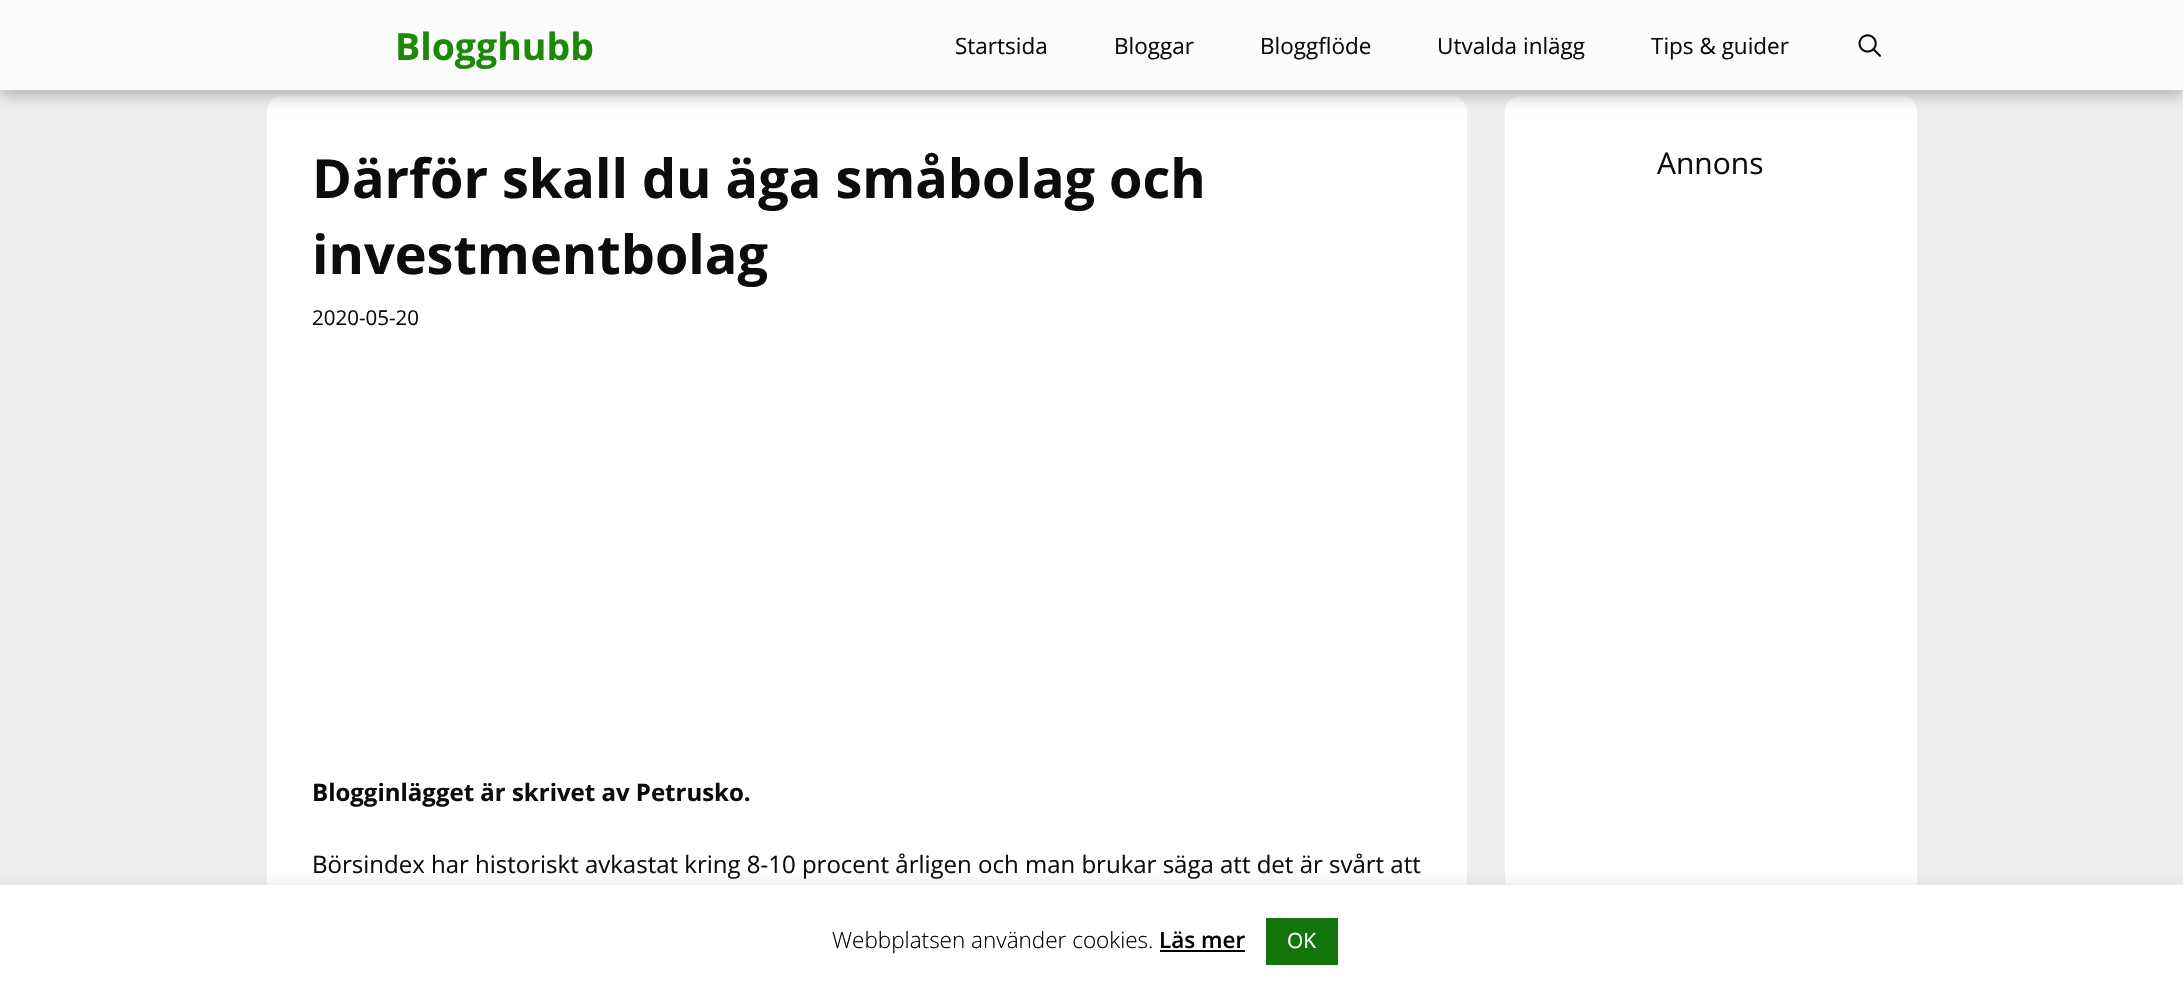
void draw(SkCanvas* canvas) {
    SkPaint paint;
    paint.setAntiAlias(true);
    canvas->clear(0xFFEFEFEF);
    paint.setColor(0xFFFFFFFF);
    canvas->drawRoundRect(SkRect::MakeXYWH(267, 96, 1200, 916), 15, 15, paint);
    canvas->drawRoundRect(SkRect::MakeXYWH(1505, 96, 412, 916), 15, 15, paint);
    paint.setColor(0xFFB0B0B0);
    paint.setMaskFilter(SkMaskFilter::MakeBlur(kNormal_SkBlurStyle, 7.5f));
    canvas->drawRect(SkRect::MakeXYWH(0, 5, 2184, 90), paint);
    paint.setMaskFilter(nullptr);
    paint.setColor(0xFFFCFCFC);
    canvas->drawRect(SkRect::MakeXYWH(0, 0, 2183, 90), paint);
    SkFont font1(fontMgr->matchFamilyStyle("Open Sans", SkFontStyle::Bold()), 37.5f);
    font1.setSubpixel(true);
    paint.setColor(0xFF1C8909);
    canvas->drawString("Blogghubb", 395, 60, font1, paint);
    SkFont font2(fontMgr->matchFamilyStyle("Open Sans", SkFontStyle::Normal()), 22.5f);
    font2.setSubpixel(true);
    paint.setColor(0xFF0C0C0D);
    canvas->drawString("Startsida", 955, 54, font2, paint);
    canvas->drawString("Bloggar", 1114, 54, font2, paint);
    canvas->drawString("Bloggflöde", 1260, 54, font2, paint);
    canvas->drawString("Utvalda inlägg", 1437, 54, font2, paint);
    canvas->drawString("Tips & guider", 1651, 54, font2, paint);
    canvas->drawImageRect(SkImages::DeferredFromEncodedData(SkData::MakeFromFileName("img1.png")), SkRect::MakeXYWH(1858, 34, 23, 23), SkSamplingOptions());
    SkFont font3(fontMgr->matchFamilyStyle("Open Sans", SkFontStyle::Bold()), 54);
    font3.setSubpixel(true);
    canvas->drawString("Därför skall du äga småbolag och", 312, 198, font3, paint);
    canvas->drawString("investmentbolag", 312, 274, font3, paint);
    SkFont font4(fontMgr->matchFamilyStyle("Open Sans", SkFontStyle::Normal()), 20.5f);
    font4.setSubpixel(true);
    canvas->drawString("2020-05-20", 312, 325, font4, paint);
    SkFont font5(fontMgr->matchFamilyStyle("Open Sans", SkFontStyle::Bold()), 24);
    font5.setSubpixel(true);
    canvas->drawString("Blogginlägget är skrivet av Petrusko.", 312, 801, font5, paint);
    SkFont font6(fontMgr->matchFamilyStyle("Open Sans", SkFontStyle::Normal()), 24);
    font6.setSubpixel(true);
    canvas->drawString("Börsindex har historiskt avkastat kring 8-10 procent årligen och man brukar säga att det är svårt att", 312, 873, font6, paint);
    SkFont font7(fontMgr->matchFamilyStyle("Open Sans", SkFontStyle::Normal()), 30);
    font7.setSubpixel(true);
    canvas->drawString("Annons", 1657, 174, font7, paint);
    paint.setColor(0x4DACABAB);
    paint.setMaskFilter(SkMaskFilter::MakeBlur(kNormal_SkBlurStyle, 7.5f));
    canvas->drawRect(SkRect::MakeXYWH(0, 884, 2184, 112), paint);
    paint.setMaskFilter(nullptr);
    paint.setColor(0xFFFFFFFF);
    canvas->drawRect(SkRect::MakeXYWH(0, 885, 2183, 112), paint);
    SkFont font8(fontMgr->matchFamilyStyle("Open Sans", SkFontStyle(300, SkFontStyle::kNormal_Width, SkFontStyle::kUpright_Slant)), 22.5f);
    font8.setSubpixel(true);
    paint.setColor(0xFF000000);
    canvas->drawString("Webbplatsen använder cookies.", 832, 948, font8, paint);
    SkFont font9(fontMgr->matchFamilyStyle("Open Sans", SkFontStyle(600, SkFontStyle::kNormal_Width, SkFontStyle::kUpright_Slant)), 22.5f);
    font9.setSubpixel(true);
    canvas->drawString("Läs mer", 1159, 948, font9, paint);
    canvas->drawRect(SkRect::MakeXYWH(1160, 950, 85, 2), paint);
    paint.setColor(0xFF11750B);
    canvas->drawRect(SkRect::MakeXYWH(1266, 918, 72, 47), paint);
    SkFont font10(fontMgr->matchFamilyStyle("Open Sans", SkFontStyle::Normal()), 21);
    font10.setSubpixel(true);
    paint.setColor(0xFFFFFFFF);
    canvas->drawString("OK", 1287, 948, font10, paint);
}
